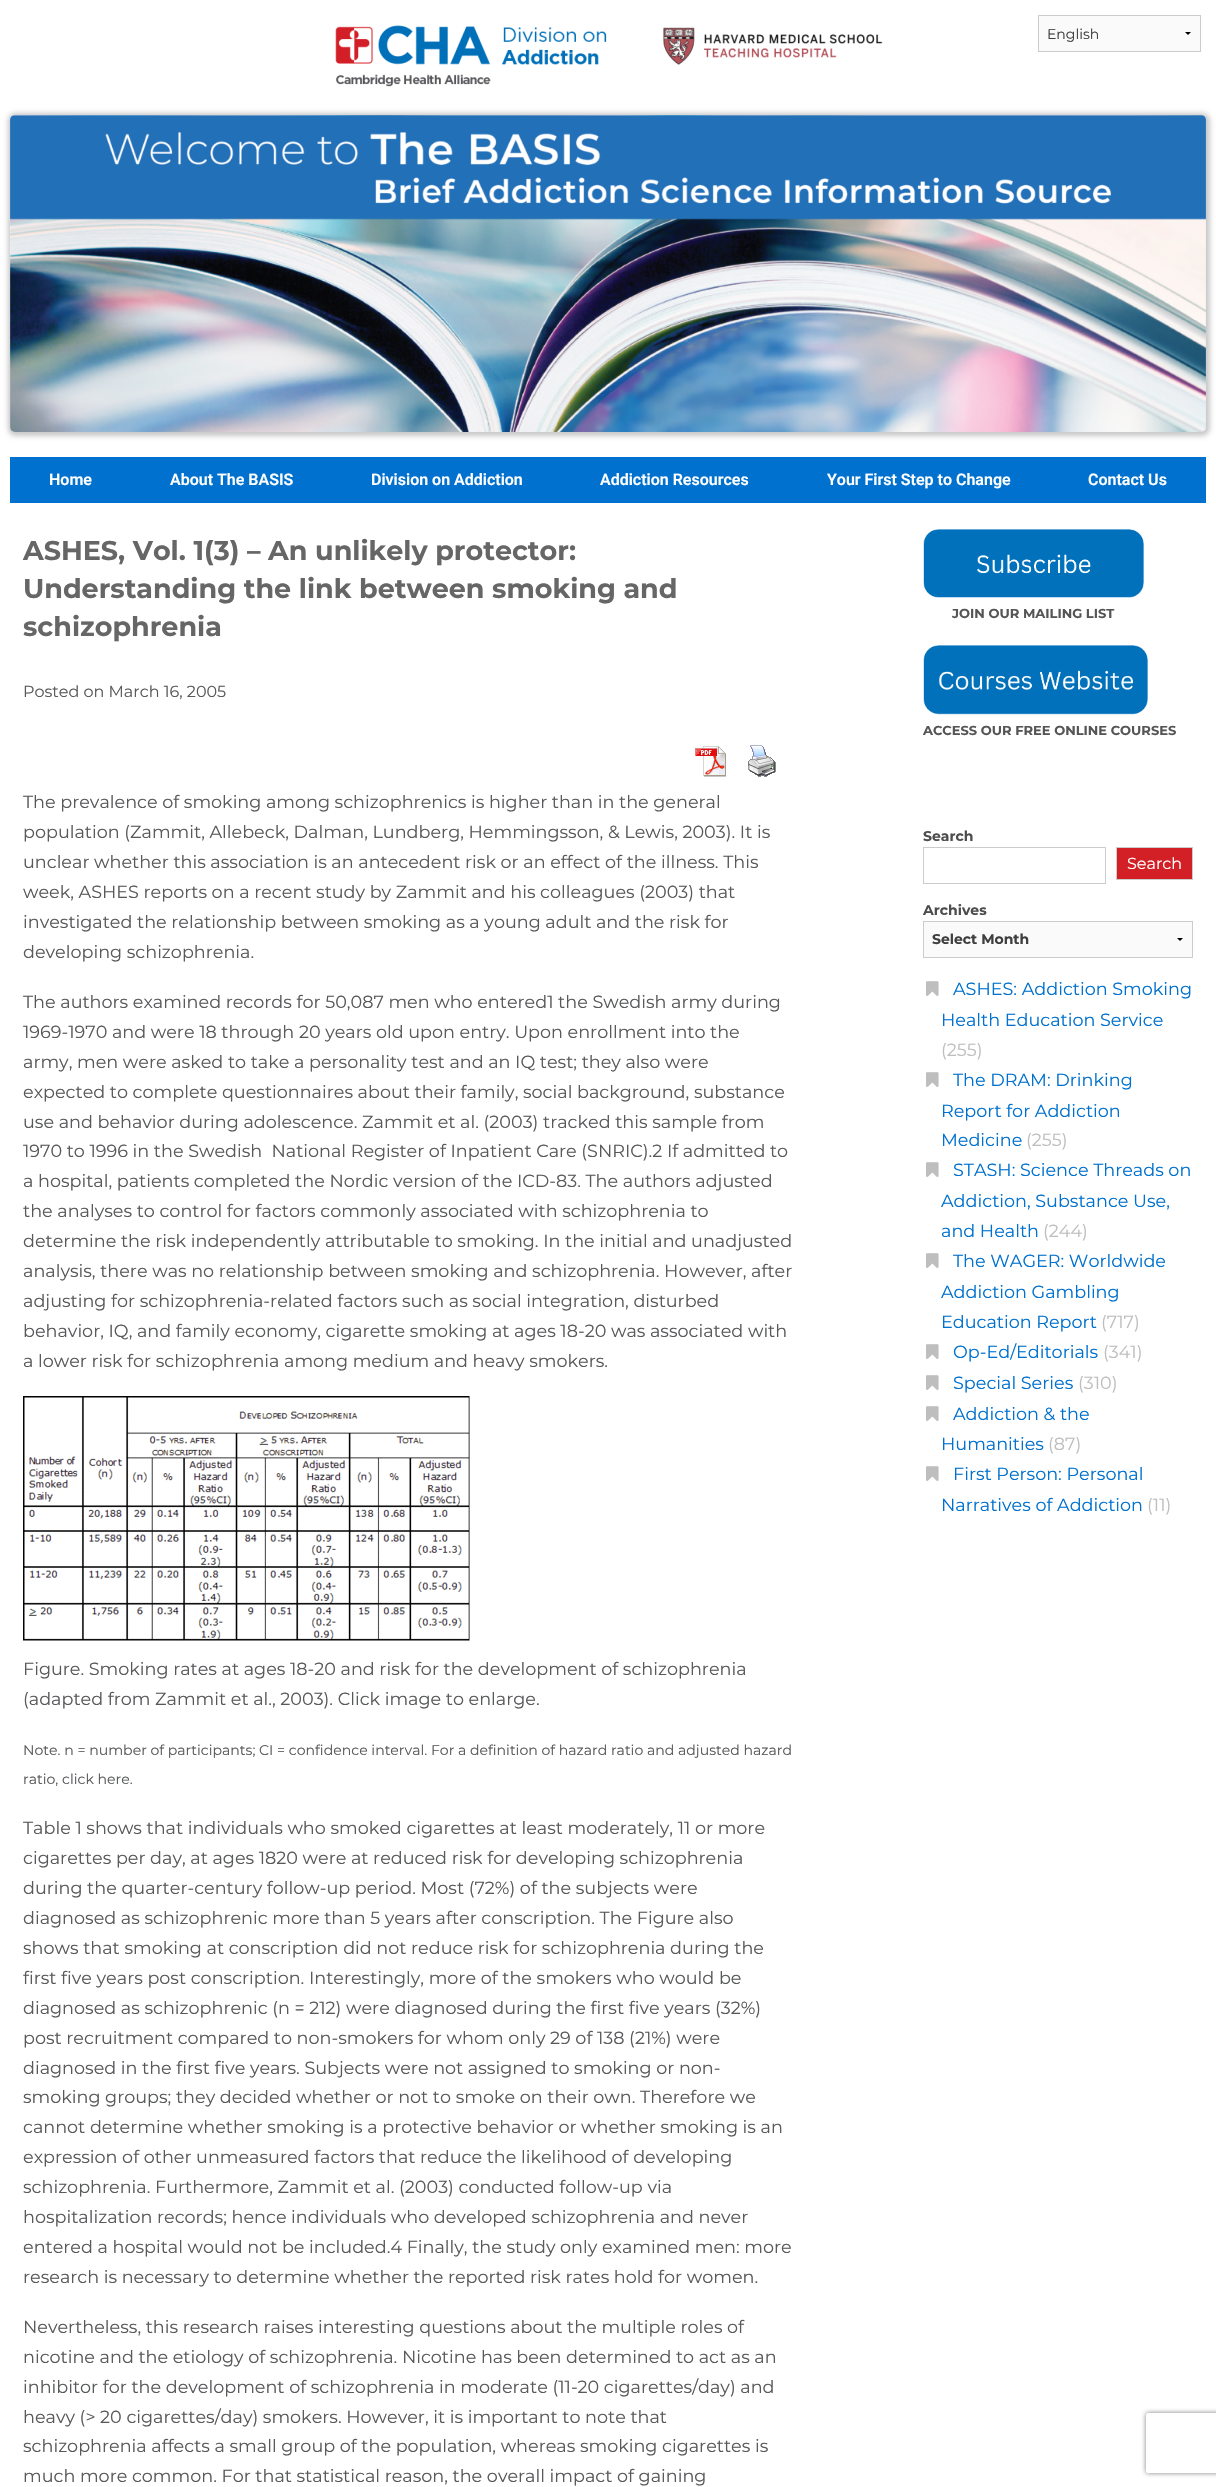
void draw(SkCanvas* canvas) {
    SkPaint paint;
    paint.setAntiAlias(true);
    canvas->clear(0xFFFFFFFF);
    paint.setColor(0xFFFAFAFA);
    canvas->drawRect(SkRect::MakeXYWH(1039, 16, 161, 35), paint);
    paint.setColor(0xFF000000);
    canvas->drawPath(SkPathBuilder().moveTo(1191, 32).lineTo(1188, 35).lineTo(1185, 32).close().detach(), paint);
    paint.setStyle(SkPaint::kStroke_Style);
    paint.setStrokeWidth(1);
    paint.setColor(0xFFCCCCCC);
    canvas->drawRect(SkRect::MakeXYWH(1038.5f, 15.5f, 162, 36), paint);
    SkFont font1(fontMgr->matchFamilyStyle("Montserrat", SkFontStyle::Normal()), 14);
    font1.setSubpixel(true);
    paint.setStyle(SkPaint::kFill_Style);
    paint.setColor(0xFF3F3F3F);
    canvas->drawString("English", 1047, 39, font1, paint);
    canvas->drawImageRect(SkImages::DeferredFromEncodedData(SkData::MakeFromFileName("img1.png")), SkRect::MakeXYWH(335, 25, 548, 62), SkSamplingOptions());
    paint.setColor(0x36000000);
    paint.setMaskFilter(SkMaskFilter::MakeBlur(kNormal_SkBlurStyle, 2.5f));
    canvas->drawRoundRect(SkRect::MakeXYWH(8, 113, 1202, 323), 8, 8, paint);
    paint.setMaskFilter(nullptr);
    canvas->drawImageRect(SkImages::DeferredFromEncodedData(SkData::MakeFromFileName("img2.png")), SkRect::MakeXYWH(10, 115, 1196, 317), SkSamplingOptions());
    paint.setColor(0xFF0071CE);
    canvas->drawRect(SkRect::MakeXYWH(10, 457, 1196, 46), paint);
    SkFont font2(fontMgr->matchFamilyStyle("Roboto", SkFontStyle(600, SkFontStyle::kNormal_Width, SkFontStyle::kUpright_Slant)), 16);
    font2.setSubpixel(true);
    paint.setColor(0xFFFFFFFF);
    canvas->drawString("Home", 49, 485, font2, paint);
    canvas->drawString("About The BASIS", 170, 485, font2, paint);
    canvas->drawString("Division on Addiction", 371, 485, font2, paint);
    canvas->drawString("Addiction Resources", 600, 485, font2, paint);
    canvas->drawString("Your First Step to Change", 827, 485, font2, paint);
    canvas->drawString("Contact Us", 1088, 485, font2, paint);
    SkFont font3(fontMgr->matchFamilyStyle("Montserrat", SkFontStyle::Bold()), 27);
    font3.setSubpixel(true);
    paint.setColor(0xFF666666);
    canvas->drawString("ASHES, Vol. 1(3) – An unlikely protector:", 23, 560, font3, paint);
    canvas->drawString("Understanding the link between smoking and", 23, 598, font3, paint);
    canvas->drawString("schizophrenia", 23, 636, font3, paint);
    SkFont font4(fontMgr->matchFamilyStyle("Montserrat", SkFontStyle::Normal()), 16);
    font4.setSubpixel(true);
    paint.setColor(0xFF58595B);
    canvas->drawString("Posted on March 16, 2005", 23, 697, font4, paint);
    canvas->drawImageRect(SkImages::DeferredFromEncodedData(SkData::MakeFromFileName("img3.png")), SkRect::MakeXYWH(695, 746, 31, 31), SkSamplingOptions());
    canvas->drawImageRect(SkImages::DeferredFromEncodedData(SkData::MakeFromFileName("img4.png")), SkRect::MakeXYWH(748, 745, 28, 32), SkSamplingOptions());
    SkFont font5(fontMgr->matchFamilyStyle("Montserrat", SkFontStyle::Normal()), 17.6f);
    font5.setSubpixel(true);
    canvas->drawString("The prevalence of smoking among schizophrenics is higher than in the general", 23, 808, font5, paint);
    canvas->drawString("population (Zammit, Allebeck, Dalman, Lundberg, Hemmingsson, & Lewis, 2003). It is", 23, 838, font5, paint);
    canvas->drawString("unclear whether this association is an antecedent risk or an effect of the illness. This", 23, 868, font5, paint);
    canvas->drawString("week, ASHES reports on a recent study by Zammit and his colleagues (2003) that", 23, 898, font5, paint);
    canvas->drawString("investigated the relationship between smoking as a young adult and the risk for", 23, 928, font5, paint);
    canvas->drawString("developing schizophrenia.", 23, 958, font5, paint);
    canvas->drawString("The authors examined records for 50,087 men who entered1 the Swedish army during", 23, 1008, font5, paint);
    canvas->drawString("1969-1970 and were 18 through 20 years old upon entry. Upon enrollment into the", 23, 1038, font5, paint);
    canvas->drawString("army, men were asked to take a personality test and an IQ test; they also were", 23, 1068, font5, paint);
    canvas->drawString("expected to complete questionnaires about their family, social background, substance", 23, 1098, font5, paint);
    canvas->drawString("use and behavior during adolescence. Zammit et al. (2003) tracked this sample from", 23, 1128, font5, paint);
    canvas->drawString("1970 to 1996 in the Swedish  National Register of Inpatient Care (SNRIC).2 If admitted to", 23, 1157, font5, paint);
    canvas->drawString("a hospital, patients completed the Nordic version of the ICD-83. The authors adjusted", 23, 1187, font5, paint);
    canvas->drawString("the analyses to control for factors commonly associated with schizophrenia to", 23, 1217, font5, paint);
    canvas->drawString("determine the risk independently attributable to smoking. In the initial and unadjusted", 23, 1247, font5, paint);
    canvas->drawString("analysis, there was no relationship between smoking and schizophrenia. However, after", 23, 1277, font5, paint);
    canvas->drawString("adjusting for schizophrenia-related factors such as social integration, disturbed", 23, 1307, font5, paint);
    canvas->drawString("behavior, IQ, and family economy, cigarette smoking at ages 18-20 was associated with", 23, 1337, font5, paint);
    canvas->drawString("a lower risk for schizophrenia among medium and heavy smokers.", 23, 1367, font5, paint);
    canvas->drawImageRect(SkImages::DeferredFromEncodedData(SkData::MakeFromFileName("img5.png")), SkRect::MakeXYWH(23, 1396, 447, 245), SkSamplingOptions());
    canvas->drawString("Figure. Smoking rates at ages 18-20 and risk for the development of schizophrenia", 23, 1675, font5, paint);
    canvas->drawString("(adapted from Zammit et al., 2003). Click image to enlarge.", 23, 1705, font5, paint);
    SkFont font6(fontMgr->matchFamilyStyle("Montserrat", SkFontStyle::Normal()), 14.08f);
    font6.setSubpixel(true);
    canvas->drawString("Note. n = number of participants; CI = confidence interval. For a definition of hazard ratio and adjusted hazard", 23, 1755, font6, paint);
    canvas->drawString("ratio, click here.", 23, 1784, font6, paint);
    canvas->drawString("Table 1 shows that individuals who smoked cigarettes at least moderately, 11 or more", 23, 1834, font5, paint);
    canvas->drawString("cigarettes per day, at ages 1820 were at reduced risk for developing schizophrenia", 23, 1864, font5, paint);
    canvas->drawString("during the quarter-century follow-up period. Most (72%) of the subjects were", 23, 1894, font5, paint);
    canvas->drawString("diagnosed as schizophrenic more than 5 years after conscription. The Figure also", 23, 1924, font5, paint);
    canvas->drawString("shows that smoking at conscription did not reduce risk for schizophrenia during the", 23, 1954, font5, paint);
    canvas->drawString("first five years post conscription. Interestingly, more of the smokers who would be", 23, 1984, font5, paint);
    canvas->drawString("diagnosed as schizophrenic (n = 212) were diagnosed during the first five years (32%)", 23, 2014, font5, paint);
    canvas->drawString("post recruitment compared to non-smokers for whom only 29 of 138 (21%) were", 23, 2044, font5, paint);
    canvas->drawString("diagnosed in the first five years. Subjects were not assigned to smoking or non-", 23, 2074, font5, paint);
    canvas->drawString("smoking groups; they decided whether or not to smoke on their own. Therefore we", 23, 2103, font5, paint);
    canvas->drawString("cannot determine whether smoking is a protective behavior or whether smoking is an", 23, 2133, font5, paint);
    canvas->drawString("expression of other unmeasured factors that reduce the likelihood of developing", 23, 2163, font5, paint);
    canvas->drawString("schizophrenia. Furthermore, Zammit et al. (2003) conducted follow-up via", 23, 2193, font5, paint);
    canvas->drawString("hospitalization records; hence individuals who developed schizophrenia and never", 23, 2223, font5, paint);
    canvas->drawString("entered a hospital would not be included.4 Finally, the study only examined men: more", 23, 2253, font5, paint);
    canvas->drawString("research is necessary to determine whether the reported risk rates hold for women.", 23, 2283, font5, paint);
    canvas->drawString("Nevertheless, this research raises interesting questions about the multiple roles of", 23, 2333, font5, paint);
    canvas->drawString("nicotine and the etiology of schizophrenia. Nicotine has been determined to act as an", 23, 2363, font5, paint);
    canvas->drawString("inhibitor for the development of schizophrenia in moderate (11-20 cigarettes/day) and", 23, 2393, font5, paint);
    canvas->drawString("heavy (> 20 cigarettes/day) smokers. However, it is important to note that", 23, 2423, font5, paint);
    canvas->drawString("schizophrenia affects a small group of the population, whereas smoking cigarettes is", 23, 2452, font5, paint);
    canvas->drawString("much more common. For that statistical reason, the overall impact of gaining", 23, 2482, font5, paint);
    canvas->drawImageRect(SkImages::DeferredFromEncodedData(SkData::MakeFromFileName("img6.png")), SkRect::MakeXYWH(923, 529, 221, 69), SkSamplingOptions());
    SkFont font7(fontMgr->matchFamilyStyle("Montserrat", SkFontStyle::Bold()), 13);
    font7.setSubpixel(true);
    paint.setColor(0xFF555555);
    canvas->drawString("JOIN OUR MAILING LIST", 952, 618, font7, paint);
    canvas->drawImageRect(SkImages::DeferredFromEncodedData(SkData::MakeFromFileName("img7.png")), SkRect::MakeXYWH(923, 645, 225, 70), SkSamplingOptions());
    canvas->drawString("ACCESS OUR FREE ONLINE COURSES", 923, 735, font7, paint);
    SkFont font8(fontMgr->matchFamilyStyle("Montserrat", SkFontStyle::Bold()), 14);
    font8.setSubpixel(true);
    paint.setColor(0xFF4D4D4D);
    canvas->drawString("Search", 923, 841, font8, paint);
    paint.setStyle(SkPaint::kStroke_Style);
    paint.setColor(0xFFCCCCCC);
    canvas->drawRect(SkRect::MakeXYWH(923.5f, 847.5f, 182, 36), paint);
    paint.setStyle(SkPaint::kFill_Style);
    paint.setColor(0xFFD32027);
    canvas->drawRect(SkRect::MakeXYWH(1116.5f, 847.5f, 76, 32), paint);
    paint.setStyle(SkPaint::kStroke_Style);
    paint.setColor(0xFFCCCCCC);
    canvas->drawRect(SkRect::MakeXYWH(1116.5f, 847.5f, 76, 32), paint);
    paint.setStyle(SkPaint::kFill_Style);
    paint.setColor(0xFFFFFFFF);
    canvas->drawString("Search", 1127, 869, font4, paint);
    paint.setColor(0xFF4D4D4D);
    canvas->drawString("Archives", 923, 915, font8, paint);
    paint.setColor(0xFFFAFAFA);
    canvas->drawRect(SkRect::MakeXYWH(924, 922, 268, 35), paint);
    paint.setColor(0xFF000000);
    canvas->drawPath(SkPathBuilder().moveTo(1183, 938).lineTo(1180, 941).lineTo(1177, 938).close().detach(), paint);
    paint.setStyle(SkPaint::kStroke_Style);
    paint.setColor(0xFFCCCCCC);
    canvas->drawRect(SkRect::MakeXYWH(923.5f, 921.5f, 269, 36), paint);
    paint.setStyle(SkPaint::kFill_Style);
    paint.setColor(0xFF3F3F3F);
    canvas->drawString("Select Month", 932, 944, font8, paint);
    canvas->drawImageRect(SkImages::DeferredFromEncodedData(SkData::MakeFromFileName("img8.png")), SkRect::MakeXYWH(926, 981, 13, 15), SkSamplingOptions());
    paint.setColor(0xFF0071CE);
    canvas->drawString("ASHES: Addiction Smoking", 953, 995, font5, paint);
    canvas->drawString("Health Education Service", 941, 1026, font5, paint);
    paint.setColor(0xFFBEBEBE);
    canvas->drawString("(255)", 941, 1056, font5, paint);
    canvas->drawImageRect(SkImages::DeferredFromEncodedData(SkData::MakeFromFileName("img8.png")), SkRect::MakeXYWH(926, 1072, 13, 15), SkSamplingOptions());
    paint.setColor(0xFF0071CE);
    canvas->drawString("The DRAM: Drinking", 953, 1086, font5, paint);
    canvas->drawString("Report for Addiction", 941, 1117, font5, paint);
    canvas->drawString("Medicine", 941, 1146, font5, paint);
    paint.setColor(0xFFBEBEBE);
    canvas->drawString("(255)", 1026, 1146, font5, paint);
    canvas->drawImageRect(SkImages::DeferredFromEncodedData(SkData::MakeFromFileName("img8.png")), SkRect::MakeXYWH(926, 1162, 13, 15), SkSamplingOptions());
    paint.setColor(0xFF0071CE);
    canvas->drawString("STASH: Science Threads on", 953, 1176, font5, paint);
    canvas->drawString("Addiction, Substance Use,", 941, 1207, font5, paint);
    canvas->drawString("and Health", 941, 1237, font5, paint);
    paint.setColor(0xFFBEBEBE);
    canvas->drawString("(244)", 1043, 1237, font5, paint);
    canvas->drawImageRect(SkImages::DeferredFromEncodedData(SkData::MakeFromFileName("img8.png")), SkRect::MakeXYWH(926, 1253, 13, 15), SkSamplingOptions());
    paint.setColor(0xFF0071CE);
    canvas->drawString("The WAGER: Worldwide", 953, 1267, font5, paint);
    canvas->drawString("Addiction Gambling", 941, 1298, font5, paint);
    canvas->drawString("Education Report", 941, 1328, font5, paint);
    paint.setColor(0xFFBEBEBE);
    canvas->drawString("(717)", 1101, 1328, font5, paint);
    canvas->drawImageRect(SkImages::DeferredFromEncodedData(SkData::MakeFromFileName("img8.png")), SkRect::MakeXYWH(926, 1344, 13, 15), SkSamplingOptions());
    paint.setColor(0xFF0071CE);
    canvas->drawString("Op-Ed/Editorials", 953, 1358, font5, paint);
    paint.setColor(0xFFBEBEBE);
    canvas->drawString("(341)", 1103, 1358, font5, paint);
    canvas->drawImageRect(SkImages::DeferredFromEncodedData(SkData::MakeFromFileName("img8.png")), SkRect::MakeXYWH(926, 1375, 13, 15), SkSamplingOptions());
    paint.setColor(0xFF0071CE);
    canvas->drawString("Special Series", 953, 1389, font5, paint);
    paint.setColor(0xFFBEBEBE);
    canvas->drawString("(310)", 1078, 1389, font5, paint);
    canvas->drawImageRect(SkImages::DeferredFromEncodedData(SkData::MakeFromFileName("img8.png")), SkRect::MakeXYWH(926, 1406, 13, 15), SkSamplingOptions());
    paint.setColor(0xFF0071CE);
    canvas->drawString("Addiction & the", 953, 1420, font5, paint);
    canvas->drawString("Humanities", 941, 1450, font5, paint);
    paint.setColor(0xFFBEBEBE);
    canvas->drawString("(87)", 1048, 1450, font5, paint);
    canvas->drawImageRect(SkImages::DeferredFromEncodedData(SkData::MakeFromFileName("img8.png")), SkRect::MakeXYWH(926, 1466, 13, 15), SkSamplingOptions());
    paint.setColor(0xFF0071CE);
    canvas->drawString("First Person: Personal", 953, 1480, font5, paint);
    canvas->drawString("Narratives of Addiction", 941, 1511, font5, paint);
    paint.setColor(0xFFBEBEBE);
    canvas->drawString("(11)", 1147, 1511, font5, paint);
    canvas->save();
    canvas->clipPath(SkPathBuilder(SkPathFillType::kEvenOdd).moveTo(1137, 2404).lineTo(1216, 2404).lineTo(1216, 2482).lineTo(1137, 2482).close().moveTo(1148, 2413).lineTo(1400, 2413).cubicTo(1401, 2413, 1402, 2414, 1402, 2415).lineTo(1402, 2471).cubicTo(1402, 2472, 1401, 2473, 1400, 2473).lineTo(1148, 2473).cubicTo(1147, 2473, 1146, 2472, 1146, 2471).lineTo(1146, 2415).cubicTo(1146, 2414, 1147, 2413, 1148, 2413).close().detach(), true);
    paint.setColor(0xFF808080);
    paint.setMaskFilter(SkMaskFilter::MakeBlur(kNormal_SkBlurStyle, 2.5f));
    canvas->drawRoundRect(SkRect::MakeXYWH(1146, 2413, 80, 60), 2, 2, paint);
    paint.setMaskFilter(nullptr);
    canvas->restore();
}
